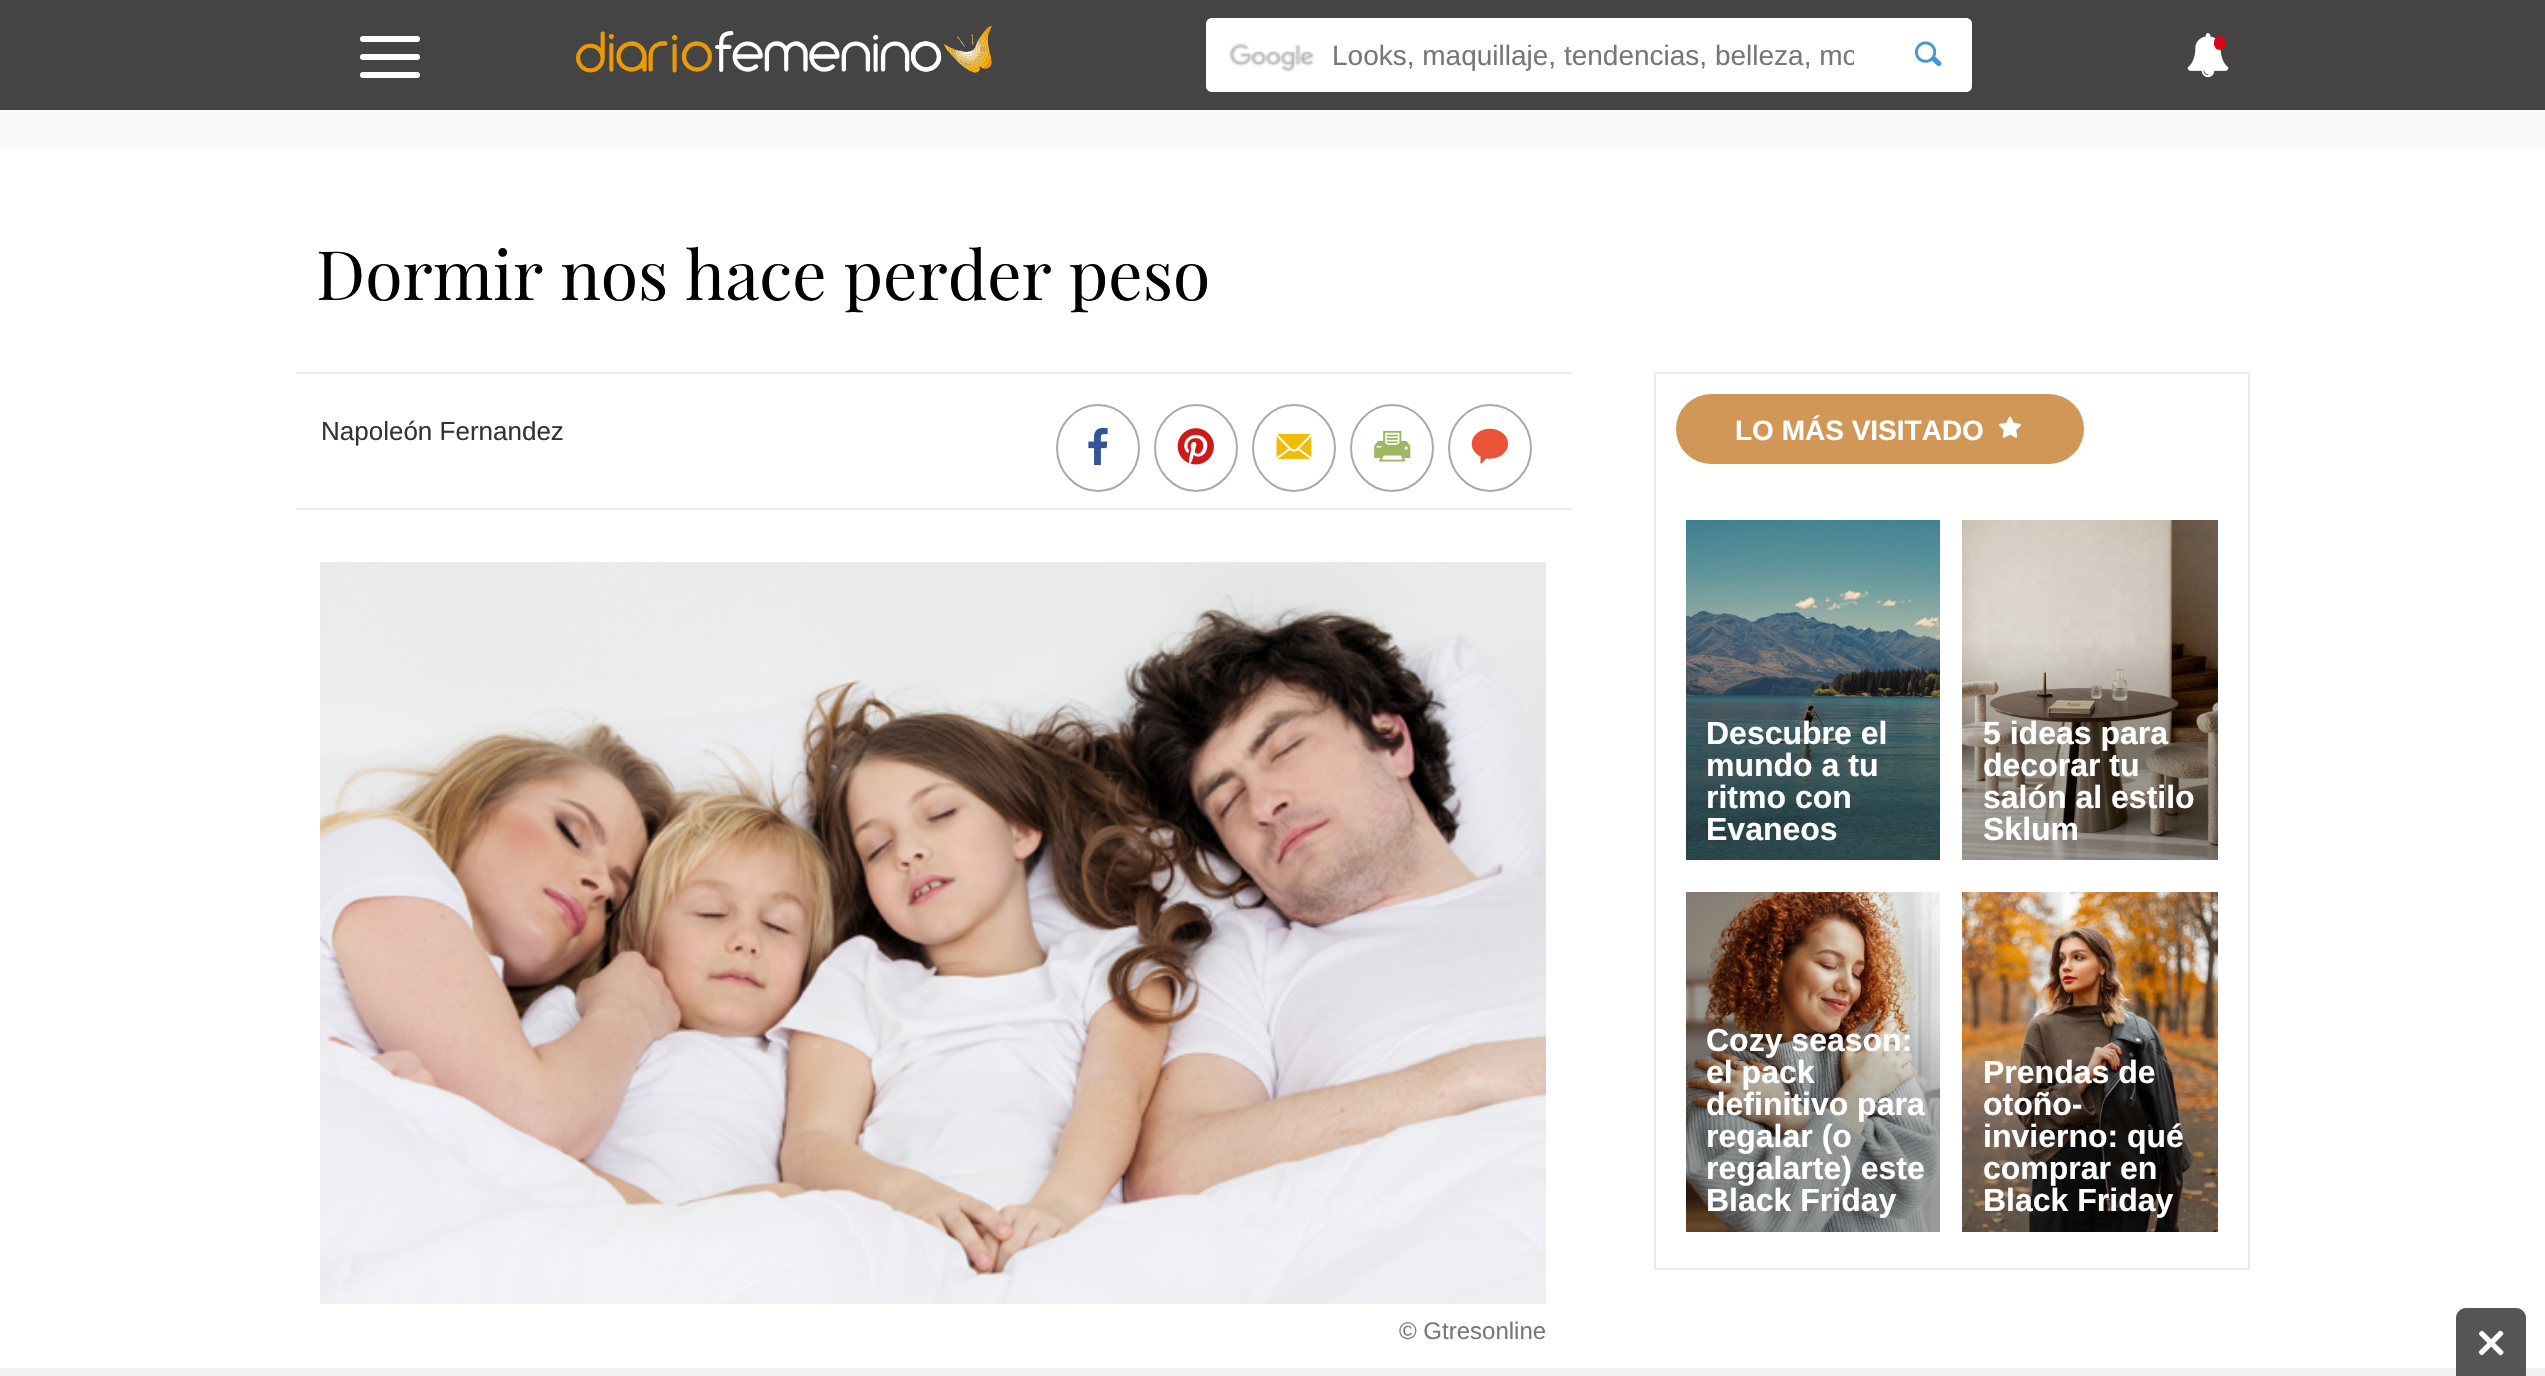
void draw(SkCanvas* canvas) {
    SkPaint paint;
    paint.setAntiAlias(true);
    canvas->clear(0xFFFFFFFF);
    paint.setColor(0xFF444444);
    canvas->drawRect(SkRect::MakeXYWH(0, 0, 2545, 110), paint);
    paint.setColor(0xFFFFFFFF);
    canvas->drawRoundRect(SkRect::MakeXYWH(360, 36, 60, 6), 3, 3, paint);
    canvas->drawRoundRect(SkRect::MakeXYWH(360, 54, 60, 6), 3, 3, paint);
    canvas->drawRoundRect(SkRect::MakeXYWH(360, 72, 60, 6), 3, 3, paint);
    canvas->drawImageRect(SkImages::DeferredFromEncodedData(SkData::MakeFromFileName("img1.png")), SkRect::MakeXYWH(576, 25, 416, 48), SkSamplingOptions());
    canvas->drawPath(SkPathBuilder().moveTo(1212, 18).lineTo(1884, 18).lineTo(1884, 92).lineTo(1212, 92).cubicTo(1208.5f, 92, 1206, 89.5f, 1206, 86).lineTo(1206, 24).cubicTo(1206, 20.5f, 1208.5f, 18, 1212, 18).close().detach(), paint);
    canvas->drawImageRect(SkImages::DeferredFromEncodedData(SkData::MakeFromFileName("img2.png")), SkRect::MakeXYWH(1229, 43, 86, 29), SkSamplingOptions());
    canvas->save();
    canvas->clipRect(SkRect::MakeXYWH(1236, 40, 618, 32));
    SkFont font1(fontMgr->matchFamilyStyle("Liberation Sans", SkFontStyle::Normal()), 28);
    font1.setSubpixel(true);
    paint.setColor(0xFF777777);
    canvas->drawString("Looks, maquillaje, tendencias, belleza, mo", 1332, 65, font1, paint);
    canvas->restore();
    paint.setColor(0xFFFFFFFF);
    canvas->drawPath(SkPathBuilder().moveTo(1884, 18).lineTo(1966, 18).cubicTo(1969.5f, 18, 1972, 20.5f, 1972, 24).lineTo(1972, 86).cubicTo(1972, 89.5f, 1969.5f, 92, 1966, 92).lineTo(1884, 92).close().detach(), paint);
    canvas->drawImageRect(SkImages::DeferredFromEncodedData(SkData::MakeFromFileName("img3.png")), SkRect::MakeXYWH(1914, 41, 28, 26), SkSamplingOptions());
    canvas->drawImageRect(SkImages::DeferredFromEncodedData(SkData::MakeFromFileName("img4.png")), SkRect::MakeXYWH(2187, 33, 42, 45), SkSamplingOptions());
    paint.setColor(0xFFD9031F);
    canvas->drawRoundRect(SkRect::MakeXYWH(2214, 36, 12, 14), 6, 6, paint);
    paint.setColor(0xFFFAFAFA);
    canvas->drawRect(SkRect::MakeXYWH(0, 110, 2545, 40), paint);
    SkFont font2(fontMgr->matchFamilyStyle("Playfair Display", SkFontStyle::Normal()), 68);
    font2.setSubpixel(true);
    paint.setColor(0xFF000000);
    canvas->drawString("Dormir nos hace perder peso", 316, 300, font2, paint);
    paint.setColor(0xFFEBEBEB);
    canvas->drawRect(SkRect::MakeXYWH(296, 372, 1276, 2), paint);
    canvas->drawRect(SkRect::MakeXYWH(296, 508, 1276, 2), paint);
    SkFont font3(fontMgr->matchFamilyStyle("Liberation Sans", SkFontStyle::Normal()), 26);
    font3.setSubpixel(true);
    paint.setColor(0xFF333333);
    canvas->drawString("Napoleón Fernandez", 321, 440, font3, paint);
    paint.setStyle(SkPaint::kStroke_Style);
    paint.setStrokeWidth(2);
    paint.setColor(0xFFAAAAAA);
    canvas->drawPath(SkPathBuilder().moveTo(1098, 405).cubicTo(1120.5f, 405, 1139, 424.5f, 1139, 448).cubicTo(1139, 471.5f, 1120.5f, 491, 1098, 491).cubicTo(1075.5f, 491, 1057, 471.5f, 1057, 448).cubicTo(1057, 424.5f, 1075.5f, 405, 1098, 405).close().detach(), paint);
    canvas->drawImageRect(SkImages::DeferredFromEncodedData(SkData::MakeFromFileName("img5.png")), SkRect::MakeXYWH(1088, 427, 20, 39), SkSamplingOptions());
    canvas->drawPath(SkPathBuilder().moveTo(1196, 405).cubicTo(1218.5f, 405, 1237, 424.5f, 1237, 448).cubicTo(1237, 471.5f, 1218.5f, 491, 1196, 491).cubicTo(1173.5f, 491, 1155, 471.5f, 1155, 448).cubicTo(1155, 424.5f, 1173.5f, 405, 1196, 405).close().detach(), paint);
    canvas->drawImageRect(SkImages::DeferredFromEncodedData(SkData::MakeFromFileName("img6.png")), SkRect::MakeXYWH(1177, 428, 37, 37), SkSamplingOptions());
    canvas->drawPath(SkPathBuilder().moveTo(1294, 405).cubicTo(1316.5f, 405, 1335, 424.5f, 1335, 448).cubicTo(1335, 471.5f, 1316.5f, 491, 1294, 491).cubicTo(1271.5f, 491, 1253, 471.5f, 1253, 448).cubicTo(1253, 424.5f, 1271.5f, 405, 1294, 405).close().detach(), paint);
    canvas->drawImageRect(SkImages::DeferredFromEncodedData(SkData::MakeFromFileName("img7.png")), SkRect::MakeXYWH(1276, 433, 36, 26), SkSamplingOptions());
    canvas->drawPath(SkPathBuilder().moveTo(1392, 405).cubicTo(1414.5f, 405, 1433, 424.5f, 1433, 448).cubicTo(1433, 471.5f, 1414.5f, 491, 1392, 491).cubicTo(1369.5f, 491, 1351, 471.5f, 1351, 448).cubicTo(1351, 424.5f, 1369.5f, 405, 1392, 405).close().detach(), paint);
    canvas->drawImageRect(SkImages::DeferredFromEncodedData(SkData::MakeFromFileName("img8.png")), SkRect::MakeXYWH(1374, 430, 37, 32), SkSamplingOptions());
    canvas->drawPath(SkPathBuilder().moveTo(1490, 405).cubicTo(1512.5f, 405, 1531, 424.5f, 1531, 448).cubicTo(1531, 471.5f, 1512.5f, 491, 1490, 491).cubicTo(1467.5f, 491, 1449, 471.5f, 1449, 448).cubicTo(1449, 424.5f, 1467.5f, 405, 1490, 405).close().detach(), paint);
    canvas->drawImageRect(SkImages::DeferredFromEncodedData(SkData::MakeFromFileName("img9.png")), SkRect::MakeXYWH(1471, 428, 38, 36), SkSamplingOptions());
    canvas->drawImageRect(SkImages::DeferredFromEncodedData(SkData::MakeFromFileName("img10.png")), SkRect::MakeXYWH(320, 562, 1226, 742), SkSamplingOptions());
    SkFont font4(fontMgr->matchFamilyStyle("Liberation Sans", SkFontStyle::Normal()), 24);
    font4.setSubpixel(true);
    paint.setStyle(SkPaint::kFill_Style);
    paint.setColor(0xFF777777);
    canvas->drawString("© Gtresonline", 1399, 1339, font4, paint);
    paint.setStyle(SkPaint::kStroke_Style);
    paint.setColor(0xFFEBEBEB);
    canvas->drawRect(SkRect::MakeXYWH(1655, 373, 594, 896), paint);
    paint.setStyle(SkPaint::kFill_Style);
    paint.setColor(0xFFD09757);
    canvas->drawRoundRect(SkRect::MakeXYWH(1676, 394, 408, 70), 35, 35, paint);
    SkFont font5(fontMgr->matchFamilyStyle("Liberation Sans", SkFontStyle::Bold()), 28);
    font5.setSubpixel(true);
    paint.setColor(0xFFFFFFFF);
    canvas->drawString("LO MÁS VISITADO", 1735, 440, font5, paint);
    canvas->drawImageRect(SkImages::DeferredFromEncodedData(SkData::MakeFromFileName("img11.png")), SkRect::MakeXYWH(1998, 416, 24, 22), SkSamplingOptions());
    canvas->drawImageRect(SkImages::DeferredFromEncodedData(SkData::MakeFromFileName("img12.png")), SkRect::MakeXYWH(1686, 520, 254, 340), SkSamplingOptions());
    SkFont font6(fontMgr->matchFamilyStyle("Liberation Sans", SkFontStyle::Bold()), 32);
    font6.setSubpixel(true);
    canvas->drawString("Descubre el", 1706, 744, font6, paint);
    canvas->drawString("mundo a tu", 1706, 776, font6, paint);
    canvas->drawString("ritmo con", 1706, 808, font6, paint);
    canvas->drawString("Evaneos", 1706, 840, font6, paint);
    canvas->drawImageRect(SkImages::DeferredFromEncodedData(SkData::MakeFromFileName("img13.png")), SkRect::MakeXYWH(1962, 520, 256, 340), SkSamplingOptions());
    canvas->drawString("5 ideas para", 1983, 744, font6, paint);
    canvas->drawString("decorar tu", 1983, 776, font6, paint);
    canvas->drawString("salón al estilo", 1983, 808, font6, paint);
    canvas->drawString("Sklum", 1983, 840, font6, paint);
    canvas->drawImageRect(SkImages::DeferredFromEncodedData(SkData::MakeFromFileName("img14.png")), SkRect::MakeXYWH(1686, 892, 254, 340), SkSamplingOptions());
    canvas->drawString("Cozy season:", 1706, 1051, font6, paint);
    canvas->drawString("el pack", 1706, 1083, font6, paint);
    canvas->drawString("definitivo para", 1706, 1115, font6, paint);
    canvas->drawString("regalar (o", 1706, 1147, font6, paint);
    canvas->drawString("regalarte) este", 1706, 1179, font6, paint);
    canvas->drawString("Black Friday", 1706, 1211, font6, paint);
    canvas->drawImageRect(SkImages::DeferredFromEncodedData(SkData::MakeFromFileName("img15.png")), SkRect::MakeXYWH(1962, 892, 256, 340), SkSamplingOptions());
    canvas->drawString("Prendas de", 1983, 1083, font6, paint);
    canvas->drawString("otoño-", 1983, 1115, font6, paint);
    canvas->drawString("invierno: qué", 1983, 1147, font6, paint);
    canvas->drawString("comprar en", 1983, 1179, font6, paint);
    canvas->drawString("Black Friday", 1983, 1211, font6, paint);
    paint.setColor(0xFFF1F2F2);
    canvas->drawRect(SkRect::MakeXYWH(0, 1368, 2545, 8), paint);
    paint.setColor(0xFF555555);
    canvas->drawPath(SkPathBuilder().moveTo(2466, 1308).lineTo(2516, 1308).cubicTo(2521.5f, 1308, 2526, 1312.5f, 2526, 1318).lineTo(2526, 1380).lineTo(2456, 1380).lineTo(2456, 1318).cubicTo(2456, 1312.5f, 2460.5f, 1308, 2466, 1308).close().detach(), paint);
    canvas->drawImageRect(SkImages::DeferredFromEncodedData(SkData::MakeFromFileName("img16.png")), SkRect::MakeXYWH(2478, 1330, 26, 26), SkSamplingOptions());
}
